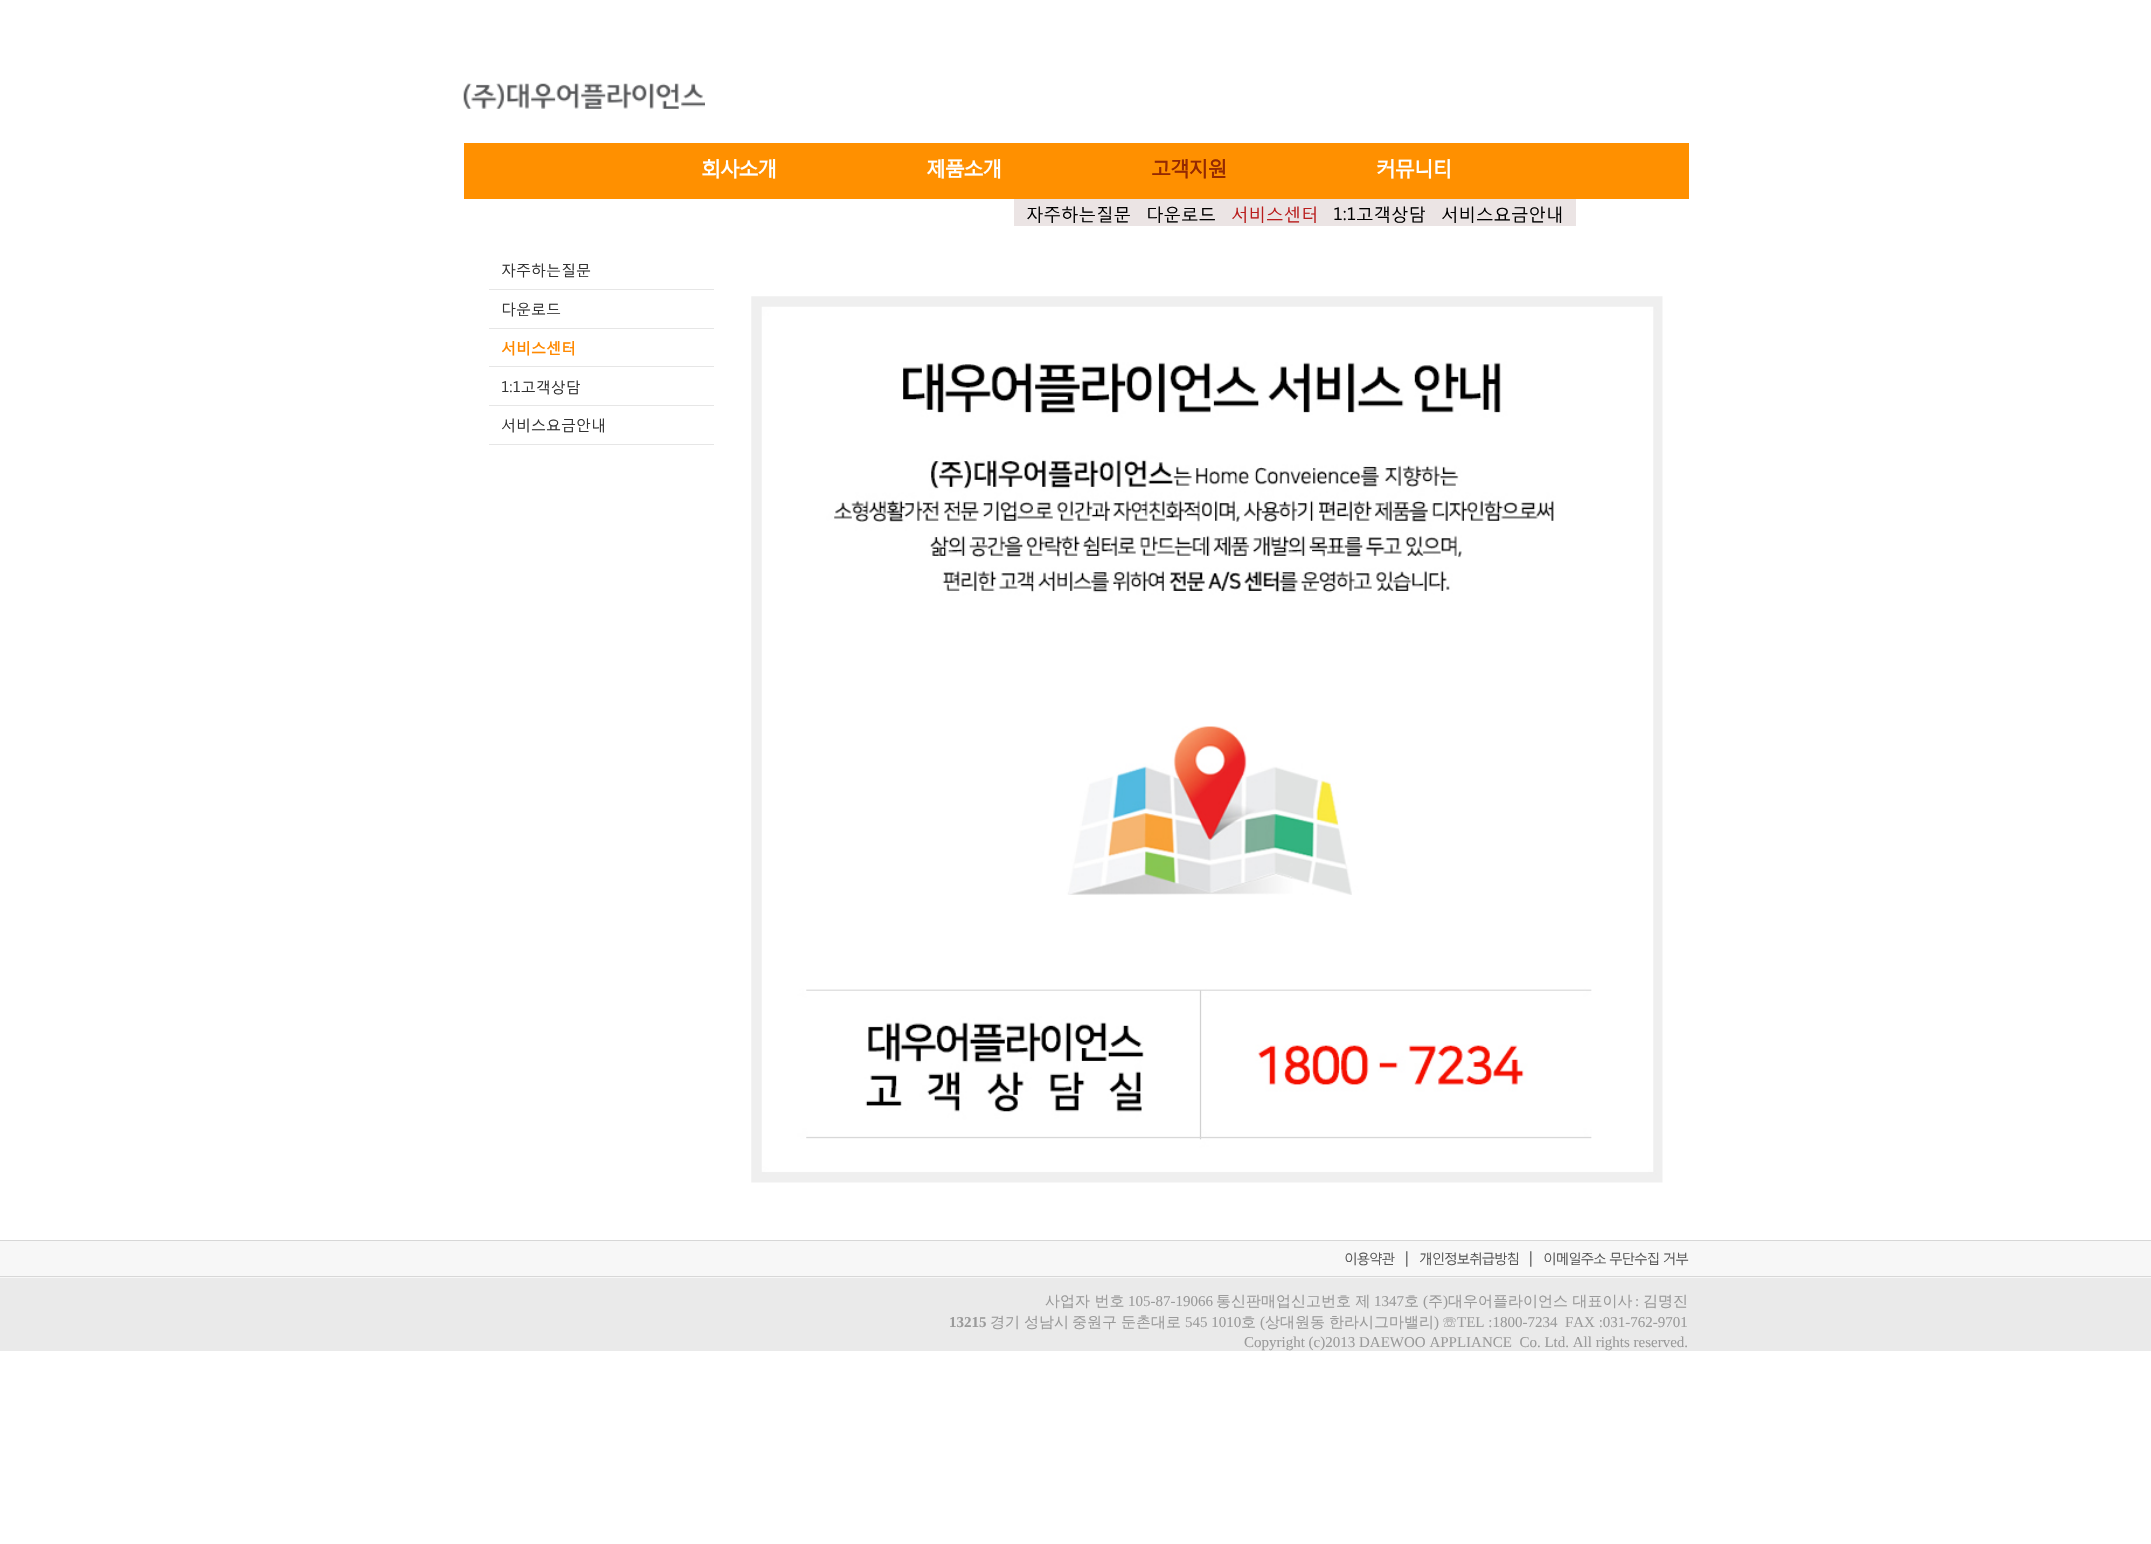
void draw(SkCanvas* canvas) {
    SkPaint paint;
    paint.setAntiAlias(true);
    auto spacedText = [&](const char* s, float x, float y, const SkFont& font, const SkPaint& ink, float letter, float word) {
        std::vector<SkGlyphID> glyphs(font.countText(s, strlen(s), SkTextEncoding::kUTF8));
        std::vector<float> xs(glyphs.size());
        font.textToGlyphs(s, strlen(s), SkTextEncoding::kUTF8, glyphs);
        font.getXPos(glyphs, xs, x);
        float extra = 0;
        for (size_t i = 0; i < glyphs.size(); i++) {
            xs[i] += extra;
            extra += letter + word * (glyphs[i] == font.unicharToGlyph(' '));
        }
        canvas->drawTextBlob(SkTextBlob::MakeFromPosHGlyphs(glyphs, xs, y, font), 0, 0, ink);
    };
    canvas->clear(0xFFFFFFFF);
    canvas->drawImageRect(SkImages::DeferredFromEncodedData(SkData::MakeFromFileName("img1.png")), SkRect::MakeXYWH(463, 83, 242, 26), SkSamplingOptions());
    paint.setColor(0xFFFF9000);
    canvas->drawRect(SkRect::MakeXYWH(464, 143, 1225, 56), paint);
    SkFont font1(fontMgr->matchFamilyStyle("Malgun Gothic", SkFontStyle::Bold()), 20);
    font1.setSubpixel(true);
    paint.setColor(0xFFFFFFFF);
    spacedText("회사소개", 701, 175, font1, paint, -1.25f, 0);
    spacedText("제품소개", 926, 175, font1, paint, -1.25f, 0);
    paint.setColor(0xFF942902);
    spacedText("고객지원", 1151, 175, font1, paint, -1.25f, 0);
    paint.setColor(0xFFFFFFFF);
    spacedText("커뮤니티", 1376, 175, font1, paint, -1.25f, 0);
    paint.setColor(0xFFEBE4E4);
    canvas->drawRect(SkRect::MakeXYWH(1014, 199, 562, 27), paint);
    SkFont font2(fontMgr->matchFamilyStyle("Malgun Gothic", SkFontStyle::Normal()), 17.5f);
    font2.setSubpixel(true);
    paint.setColor(0xFF000000);
    canvas->drawString("자주하는질문", 1026, 220, font2, paint);
    canvas->drawString("다운로드", 1146, 220, font2, paint);
    paint.setColor(0xFFB91D1D);
    canvas->drawString("서비스센터", 1231, 220, font2, paint);
    paint.setColor(0xFF000000);
    canvas->drawString("1:1고객상담", 1333, 220, font2, paint);
    canvas->drawString("서비스요금안내", 1441, 220, font2, paint);
    paint.setColor(0xFFE6E6E6);
    canvas->drawRect(SkRect::MakeXYWH(489, 289, 225, 1), paint);
    SkFont font3(fontMgr->matchFamilyStyle("Malgun Gothic", SkFontStyle::Normal()), 15);
    font3.setSubpixel(true);
    paint.setColor(0xFF323232);
    canvas->drawString("자주하는질문", 501, 275, font3, paint);
    paint.setColor(0xFFE6E6E6);
    canvas->drawRect(SkRect::MakeXYWH(489, 328, 225, 1), paint);
    paint.setColor(0xFF323232);
    canvas->drawString("다운로드", 501, 314, font3, paint);
    paint.setColor(0xFFE6E6E6);
    canvas->drawRect(SkRect::MakeXYWH(489, 366, 225, 1), paint);
    SkFont font4(fontMgr->matchFamilyStyle("Malgun Gothic", SkFontStyle::Bold()), 15);
    font4.setSubpixel(true);
    paint.setColor(0xFFFF8900);
    canvas->drawString("서비스센터", 501, 353, font4, paint);
    paint.setColor(0xFFE6E6E6);
    canvas->drawRect(SkRect::MakeXYWH(489, 405, 225, 1), paint);
    paint.setColor(0xFF323232);
    canvas->drawString("1:1고객상담", 501, 392, font3, paint);
    paint.setColor(0xFFE6E6E6);
    canvas->drawRect(SkRect::MakeXYWH(489, 444, 225, 1), paint);
    paint.setColor(0xFF323232);
    canvas->drawString("서비스요금안내", 501, 430, font3, paint);
    canvas->drawImageRect(SkImages::DeferredFromEncodedData(SkData::MakeFromFileName("img2.png")), SkRect::MakeXYWH(751, 296, 912, 887), SkSamplingOptions());
    paint.setColor(0xFFEAEAEA);
    canvas->drawRect(SkRect::MakeXYWH(0, 1278, 2151, 73), paint);
    paint.setColor(0xFFD7D7D7);
    canvas->drawRect(SkRect::MakeXYWH(0, 1240, 2151, 1), paint);
    paint.setColor(0xFFF7F7F7);
    canvas->drawRect(SkRect::MakeXYWH(0, 1241, 2151, 37), paint);
    paint.setColor(0xFFD7D7D7);
    canvas->drawRect(SkRect::MakeXYWH(0, 1276, 2151, 1), paint);
    SkFont font5(fontMgr->matchFamilyStyle("Malgun Gothic", SkFontStyle::Normal()), 13.75f);
    font5.setSubpixel(true);
    paint.setColor(0xFF555555);
    spacedText("이용약관", 1344, 1263, font5, paint, -1.25f, 0);
    canvas->drawString("|", 1405, 1263, font3, paint);
    spacedText("개인정보취급방침", 1419, 1263, font5, paint, -1.25f, 0);
    canvas->drawString("|", 1529, 1263, font3, paint);
    spacedText("이메일주소 무단수집 거부", 1543, 1263, font5, paint, -1.25f, 0);
    SkFont font6(fontMgr->matchFamilyStyle("WenQuanYi Zen Hei", SkFontStyle(500, SkFontStyle::kNormal_Width, SkFontStyle::kUpright_Slant)), 15);
    font6.setSubpixel(true);
    paint.setColor(0xFF9A9A9A);
    canvas->drawString("사업자 번호", 1045, 1306, font6, paint);
    SkFont font7(fontMgr->matchFamilyStyle("Liberation Serif", SkFontStyle::Normal()), 15);
    font7.setSubpixel(true);
    canvas->drawString("105-87-19066", 1128, 1306, font7, paint);
    canvas->drawString("통신판매업신고번호 제", 1216, 1306, font6, paint);
    canvas->drawString("1347", 1374, 1306, font7, paint);
    canvas->drawString("호", 1404, 1306, font6, paint);
    canvas->drawString("(", 1423, 1306, font7, paint);
    canvas->drawString("주", 1428, 1306, font6, paint);
    canvas->drawString(")", 1443, 1306, font7, paint);
    canvas->drawString("대우어플라이언스 대표이사", 1448, 1306, font6, paint);
    canvas->drawString(":", 1635, 1306, font7, paint);
    canvas->drawString("김명진", 1643, 1306, font6, paint);
    SkFont font8(fontMgr->matchFamilyStyle("Liberation Serif", SkFontStyle::Bold()), 15);
    font8.setSubpixel(true);
    canvas->drawString("13215", 949, 1327, font8, paint);
    canvas->drawString("경기", 990, 1327, font6, paint);
    canvas->drawString("성남시", 1024, 1327, font6, paint);
    canvas->drawString("중원구", 1072, 1327, font6, paint);
    canvas->drawString("둔촌대로", 1121, 1327, font6, paint);
    canvas->drawString("545 1010", 1185, 1327, font7, paint);
    canvas->drawString("호", 1241, 1327, font6, paint);
    canvas->drawString("(", 1260, 1327, font7, paint);
    canvas->drawString("상대원동", 1265, 1327, font6, paint);
    canvas->drawString("한라시그마밸리", 1329, 1327, font6, paint);
    canvas->drawString(")", 1434, 1327, font7, paint);
    canvas->drawString("☏", 1442, 1327, font6, paint);
    canvas->drawString("TEL :1800-7234  FAX :031-762-9701", 1457, 1327, font7, paint);
    canvas->drawString("Copyright (c)2013 DAEWOO APPLIANCE  Co. Ltd. All rights reserved.", 1244, 1347, font7, paint);
}
